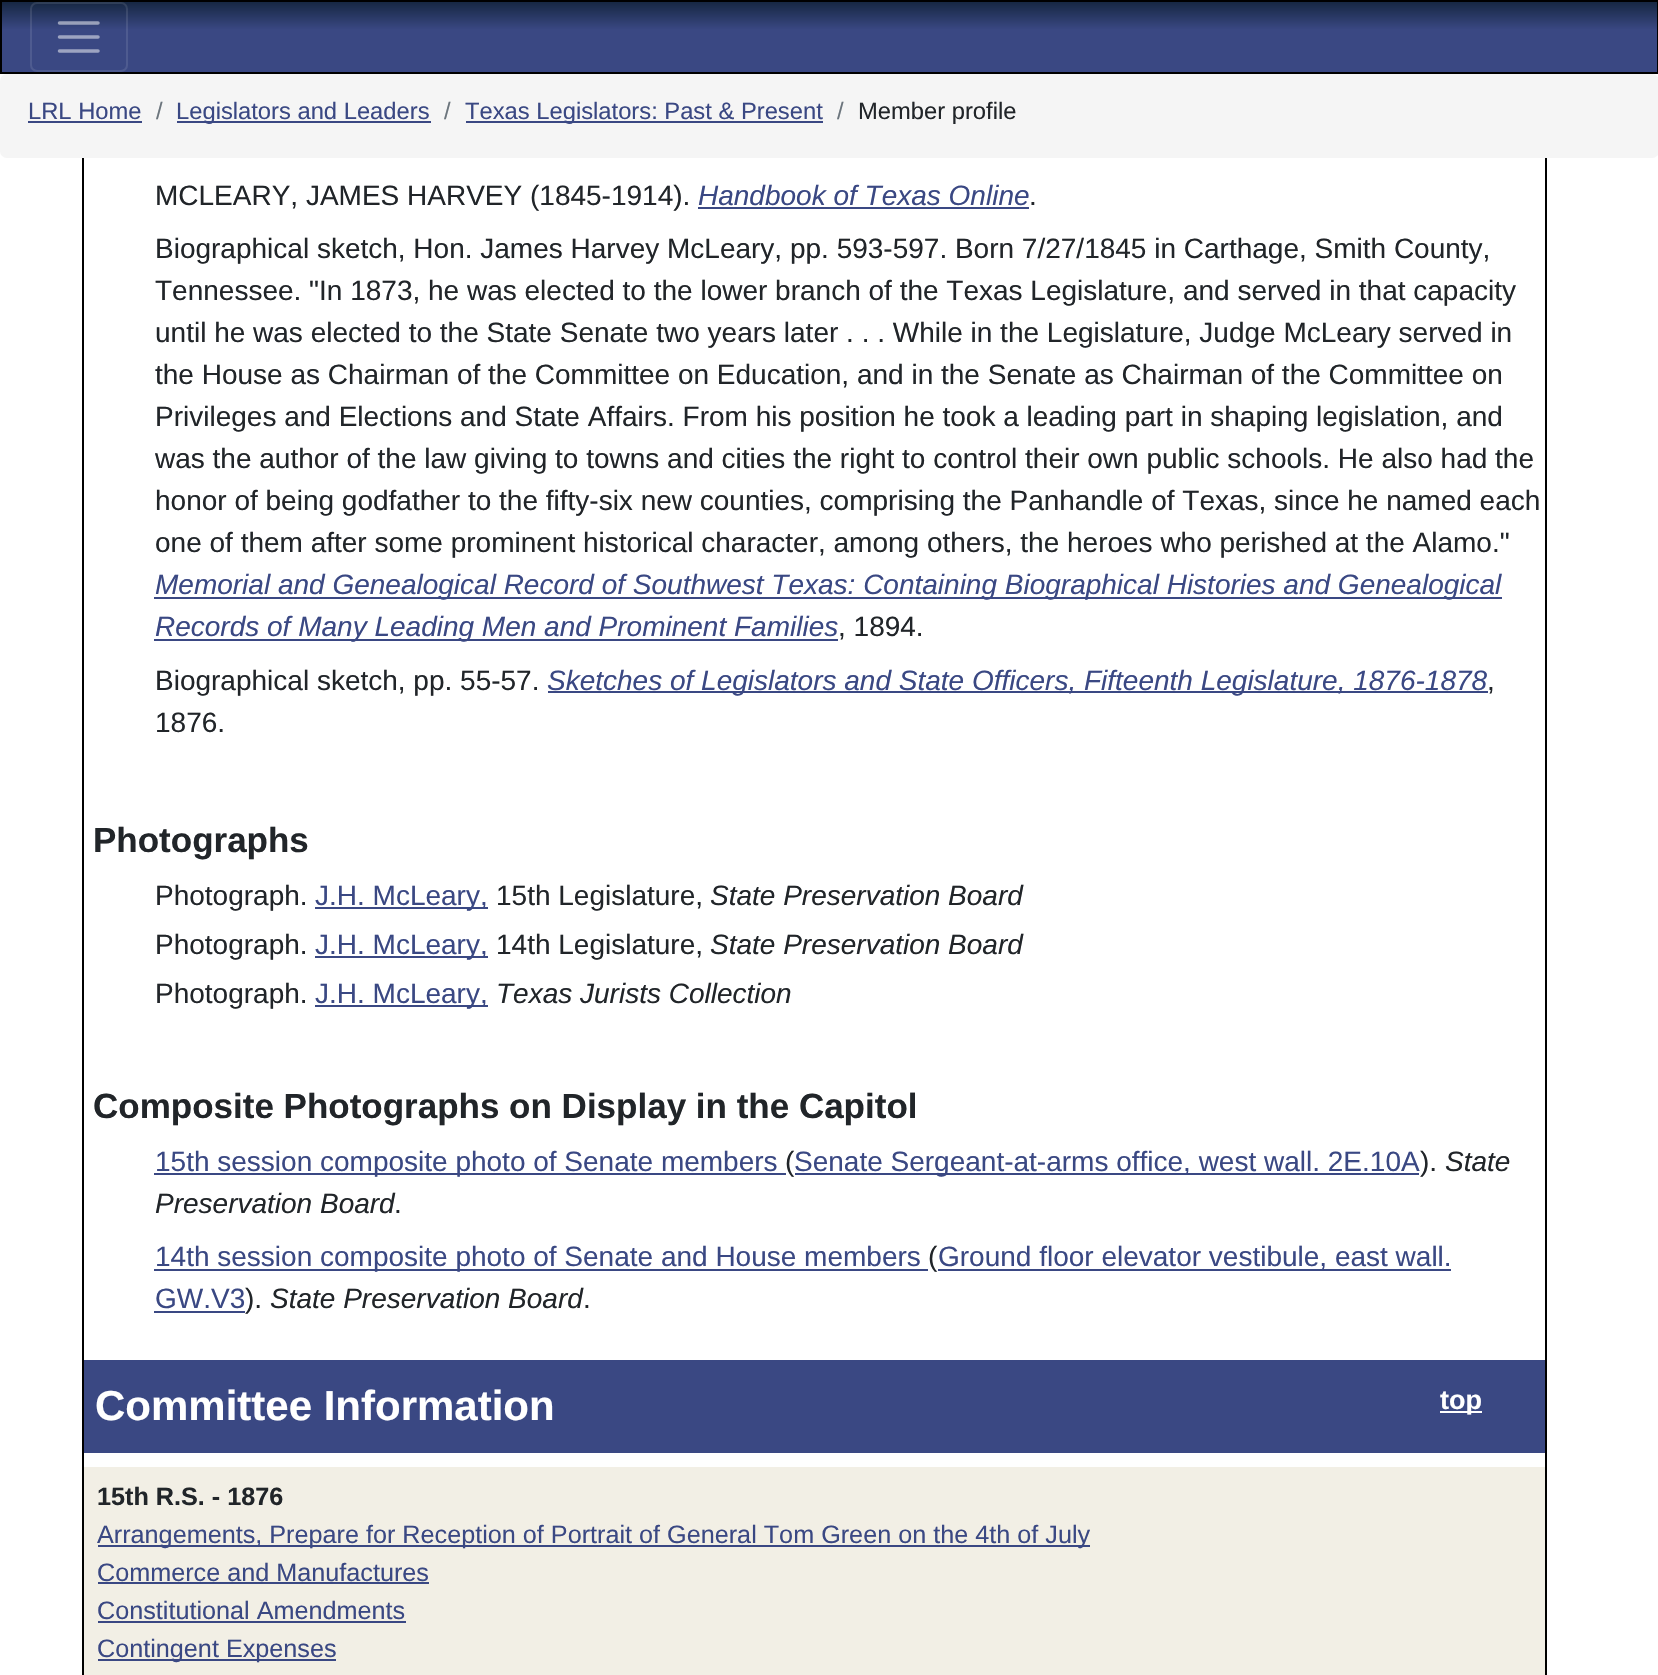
void draw(SkCanvas* canvas) {
    SkPaint paint;
    paint.setAntiAlias(true);
    canvas->clear(0xFFFFFFFF);
    paint.setStyle(SkPaint::kStroke_Style);
    paint.setStrokeWidth(2);
    paint.setColor(0xFF000000);
    canvas->drawRect(SkRect::MakeXYWH(83, -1, 1463, 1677), paint);
    paint.setStyle(SkPaint::kFill_Style);
    {
        const SkColor colors[] = {0xFF162742, 0xFF3A4883};
        const float stops[] = {0, 0.4f};
        const SkPoint ends[] = {{830, 1.7f}, {830, 72}};
        paint.setShader(SkGradientShader::MakeLinear(ends, colors, stops, 2, SkTileMode::kClamp));
        paint.setAlpha(255);
    }
    canvas->drawRect(SkRect::MakeXYWH(2, 2, 1655, 70), paint);
    paint.setStyle(SkPaint::kStroke_Style);
    paint.setShader(nullptr);
    paint.setColor(0xFF000000);
    canvas->drawRect(SkRect::MakeXYWH(1, 1, 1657, 72), paint);
    paint.setColor(0x1AFFFFFF);
    canvas->drawRoundRect(SkRect::MakeXYWH(31, 3, 96, 68), 6, 6, paint);
    paint.setStrokeWidth(3.5f);
    paint.setStrokeCap(SkPaint::kRound_Cap);
    paint.setColor(0x80FFFFFF);
    canvas->drawPath(SkPathBuilder().moveTo(59.5f, 23).lineTo(98, 23).moveTo(59.5f, 37).lineTo(98, 37).moveTo(59.5f, 51).lineTo(98, 51).detach(), paint);
    paint.setStyle(SkPaint::kFill_Style);
    paint.setColor(0xFFF5F5F5);
    canvas->drawRoundRect(SkRect::MakeXYWH(0, 74, 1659, 84), 7, 7, paint);
    SkFont font1(fontMgr->matchFamilyStyle("Liberation Sans", SkFontStyle::Normal()), 23.75f);
    font1.setSubpixel(true);
    paint.setColor(0xFF3A4883);
    canvas->drawString("LRL Home", 28, 119, font1, paint);
    canvas->drawRect(SkRect::MakeXYWH(28, 121, 114, 2), paint);
    paint.setColor(0xFF6C757D);
    canvas->drawString("/", 156, 119, font1, paint);
    paint.setColor(0xFF3A4883);
    canvas->drawRect(SkRect::MakeXYWH(177, 121, 254, 2), paint);
    canvas->drawString("Legislators and Leaders", 176, 119, font1, paint);
    paint.setColor(0xFF6C757D);
    canvas->drawString("/", 444, 119, font1, paint);
    paint.setColor(0xFF3A4883);
    canvas->drawRect(SkRect::MakeXYWH(466, 121, 357, 2), paint);
    canvas->drawString("Texas Legislators: Past & Present", 465, 119, font1, paint);
    paint.setColor(0xFF6C757D);
    canvas->drawString("/", 837, 119, font1, paint);
    paint.setColor(0xFF212529);
    canvas->drawString("Member profile", 858, 119, font1, paint);
    SkFont font2(fontMgr->matchFamilyStyle("Liberation Sans", SkFontStyle::Normal()), 28);
    font2.setSubpixel(true);
    canvas->drawString("MCLEARY, JAMES HARVEY (1845-1914).", 155, 205, font2, paint);
    SkFont font3(fontMgr->matchFamilyStyle("Liberation Sans", SkFontStyle::Italic()), 28);
    font3.setSubpixel(true);
    paint.setColor(0xFF3A4883);
    canvas->drawString("Handbook of Texas Online", 698, 205, font3, paint);
    canvas->drawRect(SkRect::MakeXYWH(698, 207, 331, 2), paint);
    paint.setColor(0xFF212529);
    canvas->drawString(".", 1029, 205, font2, paint);
    canvas->drawString("Biographical sketch, Hon. James Harvey McLeary, pp. 593-597. Born 7/27/1845 in Carthage, Smith County,", 155, 258, font2, paint);
    canvas->drawString("Tennessee. \"In 1873, he was elected to the lower branch of the Texas Legislature, and served in that capacity", 155, 300, font2, paint);
    canvas->drawString("until he was elected to the State Senate two years later . . . While in the Legislature, Judge McLeary served in", 155, 342, font2, paint);
    canvas->drawString("the House as Chairman of the Committee on Education, and in the Senate as Chairman of the Committee on", 155, 384, font2, paint);
    canvas->drawString("Privileges and Elections and State Affairs. From his position he took a leading part in shaping legislation, and", 155, 426, font2, paint);
    canvas->drawString("was the author of the law giving to towns and cities the right to control their own public schools. He also had the", 155, 468, font2, paint);
    canvas->drawString("honor of being godfather to the fifty-six new counties, comprising the Panhandle of Texas, since he named each", 155, 510, font2, paint);
    canvas->drawString("one of them after some prominent historical character, among others, the heroes who perished at the Alamo.\"", 155, 552, font2, paint);
    paint.setColor(0xFF3A4883);
    canvas->drawRect(SkRect::MakeXYWH(154, 597, 1348, 2), paint);
    canvas->drawString("Memorial and Genealogical Record of Southwest Texas: Containing Biographical Histories and Genealogical", 155, 594, font3, paint);
    canvas->drawRect(SkRect::MakeXYWH(154, 639, 684, 2), paint);
    canvas->drawString("Records of Many Leading Men and Prominent Families", 155, 636, font3, paint);
    paint.setColor(0xFF212529);
    canvas->drawString(", 1894.", 838, 636, font2, paint);
    canvas->drawString("Biographical sketch, pp. 55-57.", 155, 690, font2, paint);
    paint.setColor(0xFF3A4883);
    canvas->drawRect(SkRect::MakeXYWH(548, 691, 940, 2), paint);
    canvas->drawString("Sketches of Legislators and State Officers, Fifteenth Legislature, 1876-1878", 547, 690, font3, paint);
    paint.setColor(0xFF212529);
    canvas->drawString(",", 1487, 690, font2, paint);
    canvas->drawString("1876.", 155, 732, font2, paint);
    SkFont font4(fontMgr->matchFamilyStyle("Liberation Sans", SkFontStyle::Bold()), 35);
    font4.setSubpixel(true);
    canvas->drawString("Photographs", 93, 852, font4, paint);
    canvas->drawString("Photograph.", 155, 905, font2, paint);
    paint.setColor(0xFF3A4883);
    canvas->drawRect(SkRect::MakeXYWH(315, 907, 173, 2), paint);
    canvas->drawString("J.H. McLeary,", 315, 905, font2, paint);
    paint.setColor(0xFF212529);
    canvas->drawString("15th Legislature,", 496, 905, font2, paint);
    canvas->drawString("State Preservation Board", 710, 905, font3, paint);
    canvas->drawString("Photograph.", 155, 954, font2, paint);
    paint.setColor(0xFF3A4883);
    canvas->drawRect(SkRect::MakeXYWH(315, 956, 173, 2), paint);
    canvas->drawString("J.H. McLeary,", 315, 954, font2, paint);
    paint.setColor(0xFF212529);
    canvas->drawString("14th Legislature,", 496, 954, font2, paint);
    canvas->drawString("State Preservation Board", 710, 954, font3, paint);
    canvas->drawString("Photograph.", 155, 1003, font2, paint);
    paint.setColor(0xFF3A4883);
    canvas->drawRect(SkRect::MakeXYWH(315, 1005, 173, 2), paint);
    canvas->drawString("J.H. McLeary,", 315, 1003, font2, paint);
    paint.setColor(0xFF212529);
    canvas->drawString("Texas Jurists Collection", 496, 1003, font3, paint);
    canvas->drawString("Composite Photographs on Display in the Capitol", 93, 1118, font4, paint);
    paint.setColor(0xFF3A4883);
    canvas->drawRect(SkRect::MakeXYWH(154, 1173, 632, 2), paint);
    canvas->drawString("15th session composite photo of Senate members", 155, 1171, font2, paint);
    paint.setColor(0xFF212529);
    canvas->drawString("(", 785, 1171, font2, paint);
    paint.setColor(0xFF3A4883);
    canvas->drawRect(SkRect::MakeXYWH(795, 1173, 624, 2), paint);
    canvas->drawString("Senate Sergeant-at-arms office, west wall. 2E.10A", 794, 1171, font2, paint);
    paint.setColor(0xFF212529);
    canvas->drawString(").", 1420, 1171, font2, paint);
    canvas->drawString("State", 1445, 1171, font3, paint);
    canvas->drawString("Preservation Board", 155, 1213, font3, paint);
    canvas->drawString(".", 394, 1213, font2, paint);
    paint.setColor(0xFF3A4883);
    canvas->drawRect(SkRect::MakeXYWH(154, 1269, 774, 2), paint);
    canvas->drawString("14th session composite photo of Senate and House members", 155, 1266, font2, paint);
    paint.setColor(0xFF212529);
    canvas->drawString("(", 928, 1266, font2, paint);
    paint.setColor(0xFF3A4883);
    canvas->drawRect(SkRect::MakeXYWH(938, 1269, 513, 2), paint);
    canvas->drawString("Ground floor elevator vestibule, east wall.", 938, 1266, font2, paint);
    canvas->drawString("GW.V3", 155, 1308, font2, paint);
    canvas->drawRect(SkRect::MakeXYWH(154, 1311, 91, 2), paint);
    paint.setColor(0xFF212529);
    canvas->drawString(").", 245, 1308, font2, paint);
    canvas->drawString("State Preservation Board", 270, 1308, font3, paint);
    canvas->drawString(".", 583, 1308, font2, paint);
    paint.setColor(0xFF3A4883);
    canvas->drawRect(SkRect::MakeXYWH(84, 1360, 1461, 93), paint);
    SkFont font5(fontMgr->matchFamilyStyle("Liberation Sans", SkFontStyle::Bold()), 42);
    font5.setSubpixel(true);
    paint.setColor(0xFFFFFFFF);
    canvas->drawString("Committee Information", 95, 1420, font5, paint);
    canvas->drawRect(SkRect::MakeXYWH(1440, 1411, 42, 2), paint);
    SkFont font6(fontMgr->matchFamilyStyle("Liberation Sans", SkFontStyle::Bold()), 27);
    font6.setSubpixel(true);
    canvas->drawString("top", 1440, 1409, font6, paint);
    paint.setColor(0xFFF2EFE5);
    canvas->drawRect(SkRect::MakeXYWH(84, 1467, 1461, 208), paint);
    SkFont font7(fontMgr->matchFamilyStyle("Liberation Sans", SkFontStyle::Bold()), 25.2f);
    font7.setSubpixel(true);
    paint.setColor(0xFF212529);
    canvas->drawString("15th R.S. - 1876", 97, 1505, font7, paint);
    paint.setColor(0xFF3A4883);
    canvas->drawRect(SkRect::MakeXYWH(98, 1545, 992, 2), paint);
    SkFont font8(fontMgr->matchFamilyStyle("Liberation Sans", SkFontStyle::Normal()), 25.2f);
    font8.setSubpixel(true);
    canvas->drawString("Arrangements, Prepare for Reception of Portrait of General Tom Green on the 4th of July", 97, 1543, font8, paint);
    canvas->drawString("Commerce and Manufactures", 97, 1581, font8, paint);
    canvas->drawRect(SkRect::MakeXYWH(98, 1582, 331, 2), paint);
    canvas->drawString("Constitutional Amendments", 97, 1619, font8, paint);
    canvas->drawRect(SkRect::MakeXYWH(98, 1621, 308, 2), paint);
    canvas->drawRect(SkRect::MakeXYWH(98, 1659, 238, 2), paint);
    canvas->drawString("Contingent Expenses", 97, 1657, font8, paint);
}
